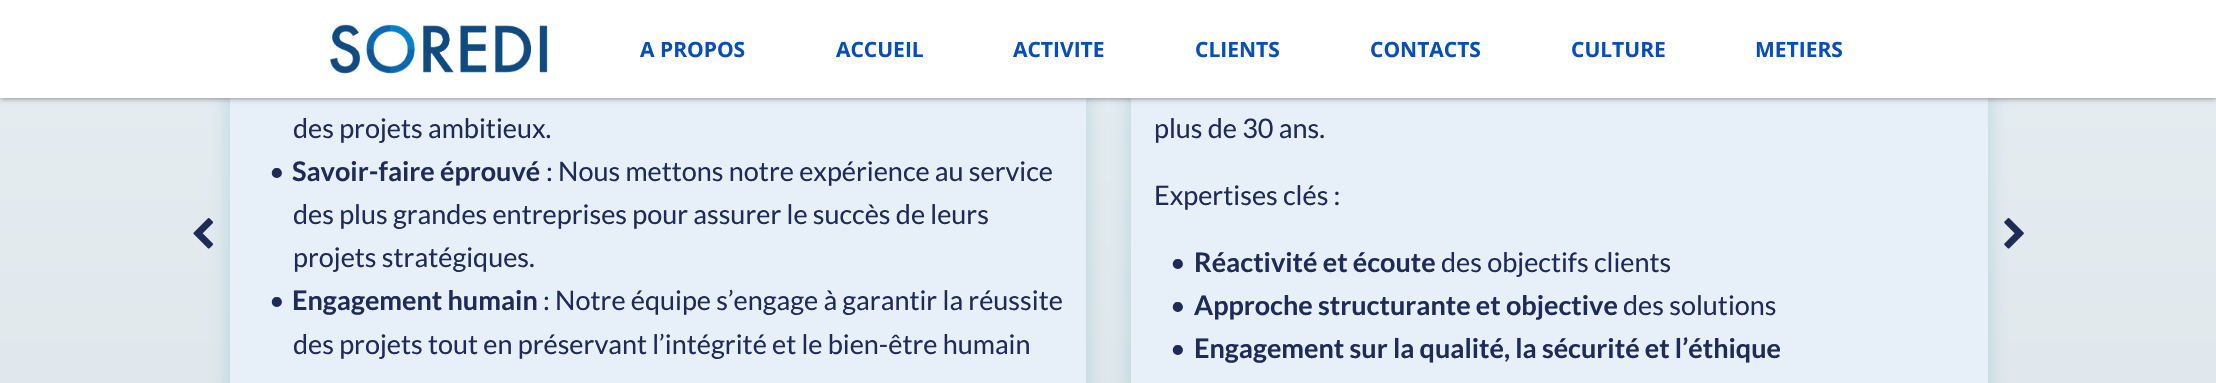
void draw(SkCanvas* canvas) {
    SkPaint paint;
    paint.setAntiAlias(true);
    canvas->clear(0xFFFFFFFF);
    {
        const SkColor colors[] = {0xFFD9E1E6, 0xFFE8EFF3};
        const float stops[] = {0, 1};
        const SkPoint ends[] = {{1109, 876}, {1109, -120}};
        paint.setShader(SkGradientShader::MakeLinear(ends, colors, stops, 2, SkTileMode::kClamp));
        paint.setAlpha(255);
    }
    canvas->drawRect(SkRect::MakeXYWH(0, 98, 2216, 285), paint);
    paint.setShader(nullptr);
    paint.setColor(0x33026E9F);
    paint.setMaskFilter(SkMaskFilter::MakeBlur(kNormal_SkBlurStyle, 11));
    canvas->drawRoundRect(SkRect::MakeXYWH(230, -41, 856, 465), 8, 8, paint);
    paint.setMaskFilter(nullptr);
    paint.setColor(0xFFE7F0F9);
    canvas->drawRect(SkRect::MakeXYWH(230, 98, 856, 285), paint);
    paint.setColor(0x33026E9F);
    paint.setMaskFilter(SkMaskFilter::MakeBlur(kNormal_SkBlurStyle, 11));
    canvas->drawRoundRect(SkRect::MakeXYWH(1131, -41, 857, 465), 8, 8, paint);
    paint.setMaskFilter(nullptr);
    paint.setColor(0xFFE7F0F9);
    canvas->drawRect(SkRect::MakeXYWH(1131, 98, 857, 285), paint);
    paint.setColor(0x80000000);
    paint.setMaskFilter(SkMaskFilter::MakeBlur(kNormal_SkBlurStyle, 3));
    canvas->drawRect(SkRect::MakeXYWH(0, 0, 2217, 98), paint);
    paint.setMaskFilter(nullptr);
    paint.setColor(0xFFFFFFFF);
    canvas->drawRect(SkRect::MakeXYWH(0, 0, 2216, 98), paint);
    canvas->drawImageRect(SkImages::DeferredFromEncodedData(SkData::MakeFromFileName("img1.png")), SkRect::MakeXYWH(330, 24, 218, 50), SkSamplingOptions());
    SkFont font1(fontMgr->matchFamilyStyle("Open Sans", SkFontStyle::Bold()), 21);
    font1.setSubpixel(true);
    paint.setColor(0xFF0A4EB3);
    canvas->drawString("A PROPOS", 640, 57, font1, paint);
    canvas->drawString("ACCUEIL", 836, 57, font1, paint);
    canvas->drawString("ACTIVITE", 1013, 57, font1, paint);
    canvas->drawString("CLIENTS", 1195, 57, font1, paint);
    canvas->drawString("CONTACTS", 1370, 57, font1, paint);
    canvas->drawString("CULTURE", 1571, 57, font1, paint);
    canvas->drawString("METIERS", 1755, 57, font1, paint);
    canvas->drawImageRect(SkImages::DeferredFromEncodedData(SkData::MakeFromFileName("img2.png")), SkRect::MakeXYWH(193, 218, 21, 31), SkSamplingOptions());
    SkFont font2(fontMgr->matchFamilyStyle("Lato", SkFontStyle::Normal()), 27);
    font2.setSubpixel(true);
    paint.setColor(0xFF1F2B57);
    canvas->drawString("des projets ambitieux.", 293, 138, font2, paint);
    canvas->drawString("•", 269, 181, font2, paint);
    SkFont font3(fontMgr->matchFamilyStyle("Lato", SkFontStyle::Bold()), 27);
    font3.setSubpixel(true);
    canvas->drawString("Savoir-faire éprouvé", 292, 181, font3, paint);
    canvas->drawString(": Nous mettons notre expérience au service", 546, 181, font2, paint);
    canvas->drawString("des plus grandes entreprises pour assurer le succès de leurs", 293, 224, font2, paint);
    canvas->drawString("projets stratégiques.", 293, 267, font2, paint);
    canvas->drawString("•", 269, 310, font2, paint);
    canvas->drawString("Engagement humain", 292, 310, font3, paint);
    canvas->drawString(": Notre équipe s’engage à garantir la réussite", 543, 310, font2, paint);
    canvas->drawString("des projets tout en préservant l’intégrité et le bien-être humain", 293, 354, font2, paint);
    canvas->drawString("plus de 30 ans.", 1154, 138, font2, paint);
    canvas->drawString("Expertises clés :", 1154, 205, font2, paint);
    canvas->drawString("•", 1170, 272, font2, paint);
    canvas->drawString("Réactivité et écoute", 1194, 272, font3, paint);
    canvas->drawString("des objectifs clients", 1441, 272, font2, paint);
    canvas->drawString("•", 1170, 315, font2, paint);
    canvas->drawString("Approche structurante et objective", 1194, 315, font3, paint);
    canvas->drawString("des solutions", 1623, 315, font2, paint);
    canvas->drawString("•", 1170, 358, font2, paint);
    canvas->drawString("Engagement sur la qualité, la sécurité et l’éthique", 1194, 358, font3, paint);
    canvas->drawImageRect(SkImages::DeferredFromEncodedData(SkData::MakeFromFileName("img3.png")), SkRect::MakeXYWH(2004, 218, 20, 31), SkSamplingOptions());
}
